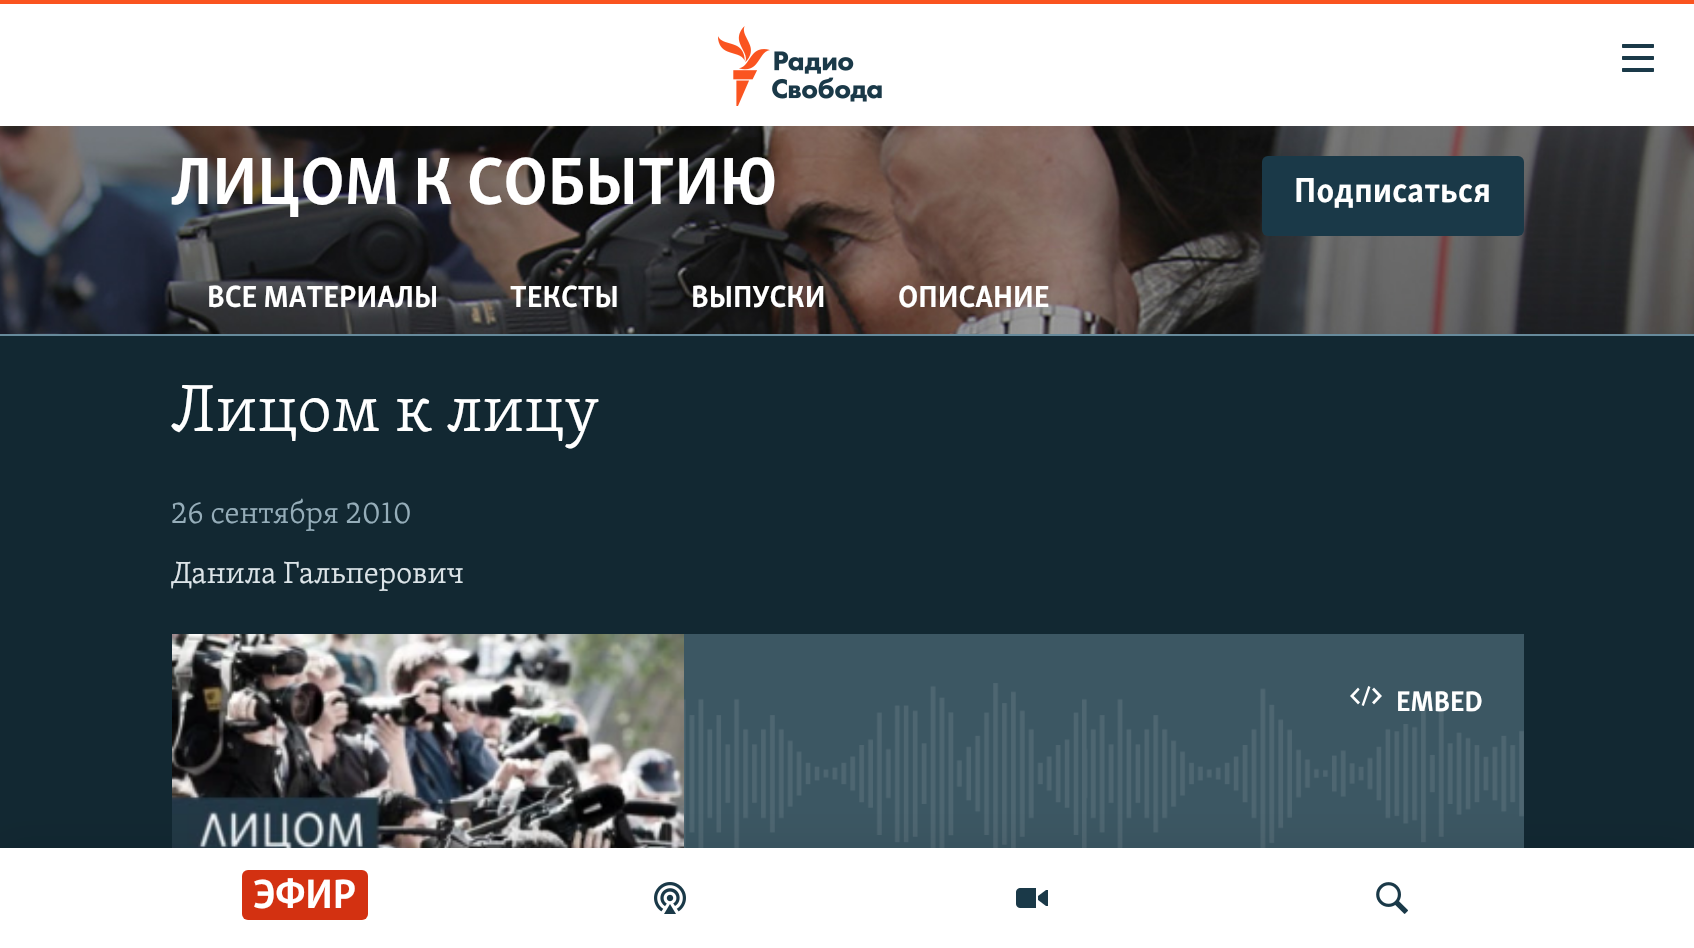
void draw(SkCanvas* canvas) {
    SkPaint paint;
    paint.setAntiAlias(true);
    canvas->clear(0xFFFFFFFF);
    canvas->drawImageRect(SkImages::DeferredFromEncodedData(SkData::MakeFromFileName("img1.png")), SkRect::MakeXYWH(0, 126, 1694, 208), SkSamplingOptions());
    SkFont font1(fontMgr->matchFamilyStyle("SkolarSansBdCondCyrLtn", SkFontStyle::Bold()), 68.5f);
    font1.setSubpixel(true);
    paint.setColor(0xFFFFFFFF);
    canvas->drawString("ЛИЦОМ К СОБЫТИЮ", 171, 204, font1, paint);
    paint.setColor(0xFF1A3948);
    canvas->drawRoundRect(SkRect::MakeXYWH(1262, 156, 262, 80), 6, 6, paint);
    SkFont font2(fontMgr->matchFamilyStyle("SkolarSansBdCondCyrLtn", SkFontStyle::Bold()), 36);
    font2.setSubpixel(true);
    paint.setColor(0xFFFFFFFF);
    canvas->drawString("Подписаться", 1294, 202, font2, paint);
    SkFont font3(fontMgr->matchFamilyStyle("SkolarSansBdCondCyrLtn", SkFontStyle::Bold()), 31.5f);
    font3.setSubpixel(true);
    canvas->drawString("ВСЕ МАТЕРИАЛЫ", 207, 307, font3, paint);
    canvas->drawString("ТЕКСТЫ", 510, 307, font3, paint);
    canvas->drawString("ВЫПУСКИ", 691, 307, font3, paint);
    canvas->drawString("ОПИСАНИЕ", 898, 307, font3, paint);
    paint.setColor(0xFF122832);
    canvas->drawRect(SkRect::MakeXYWH(0, 336, 1694, 512), paint);
    paint.setColor(0xFF678A9B);
    canvas->drawRect(SkRect::MakeXYWH(0, 334, 1694, 2), paint);
    SkFont font4(fontMgr->matchFamilyStyle("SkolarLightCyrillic", SkFontStyle(300, SkFontStyle::kNormal_Width, SkFontStyle::kUpright_Slant)), 68.5f);
    font4.setSubpixel(true);
    paint.setColor(0xFFFFFFFF);
    canvas->drawString("Лицом к лицу", 171, 431, font4, paint);
    SkFont font5(fontMgr->matchFamilyStyle("SkolarLightCyrillic", SkFontStyle(300, SkFontStyle::kNormal_Width, SkFontStyle::kUpright_Slant)), 31.5f);
    font5.setSubpixel(true);
    paint.setColor(0xFF95ADB9);
    canvas->drawString("26 сентября 2010", 171, 523, font5, paint);
    paint.setColor(0xFFDCE4E8);
    canvas->drawString("Данила Гальперович", 171, 583, font5, paint);
    paint.setColor(0xFF3C5763);
    canvas->drawRect(SkRect::MakeXYWH(684, 634, 840, 214), paint);
    canvas->drawImageRect(SkImages::DeferredFromEncodedData(SkData::MakeFromFileName("img2.png")), SkRect::MakeXYWH(684, 683, 840, 165), SkSamplingOptions());
    canvas->drawImageRect(SkImages::DeferredFromEncodedData(SkData::MakeFromFileName("img3.png")), SkRect::MakeXYWH(172, 634, 512, 214), SkSamplingOptions());
    canvas->drawImageRect(SkImages::DeferredFromEncodedData(SkData::MakeFromFileName("img4.png")), SkRect::MakeXYWH(1350, 686, 32, 20), SkSamplingOptions());
    SkFont font6(fontMgr->matchFamilyStyle("SkolarSansBdCondCyrLtn", SkFontStyle::Bold()), 29);
    font6.setSubpixel(true);
    paint.setColor(0xFFFFFFFF);
    canvas->drawString("EMBED", 1396, 711, font6, paint);
    paint.setColor(0xFFFA5420);
    canvas->drawRect(SkRect::MakeXYWH(0, 0, 1694, 4), paint);
    canvas->drawImageRect(SkImages::DeferredFromEncodedData(SkData::MakeFromFileName("img5.png")), SkRect::MakeXYWH(718, 26, 164, 80), SkSamplingOptions());
    canvas->drawImageRect(SkImages::DeferredFromEncodedData(SkData::MakeFromFileName("img6.png")), SkRect::MakeXYWH(1622, 44, 32, 28), SkSamplingOptions());
    paint.setColor(0x1A000000);
    paint.setMaskFilter(SkMaskFilter::MakeBlur(kNormal_SkBlurStyle, 20));
    canvas->drawRect(SkRect::MakeXYWH(0, 848, 1694, 100), paint);
    paint.setMaskFilter(nullptr);
    paint.setColor(0xFFFFFFFF);
    canvas->drawRect(SkRect::MakeXYWH(0, 848, 1694, 100), paint);
    paint.setColor(0xFFD33111);
    canvas->drawRoundRect(SkRect::MakeXYWH(242, 870, 126, 50), 6, 6, paint);
    SkFont font7(fontMgr->matchFamilyStyle("SkolarSansBdCondCyrLtn", SkFontStyle::Bold()), 42);
    font7.setSubpixel(true);
    paint.setColor(0xFFFFFFFF);
    canvas->drawString("ЭФИР", 253, 908, font7, paint);
    canvas->drawImageRect(SkImages::DeferredFromEncodedData(SkData::MakeFromFileName("img7.png")), SkRect::MakeXYWH(654, 882, 32, 32), SkSamplingOptions());
    canvas->drawImageRect(SkImages::DeferredFromEncodedData(SkData::MakeFromFileName("img8.png")), SkRect::MakeXYWH(1016, 888, 32, 20), SkSamplingOptions());
    canvas->drawImageRect(SkImages::DeferredFromEncodedData(SkData::MakeFromFileName("img9.png")), SkRect::MakeXYWH(1376, 882, 32, 32), SkSamplingOptions());
}
